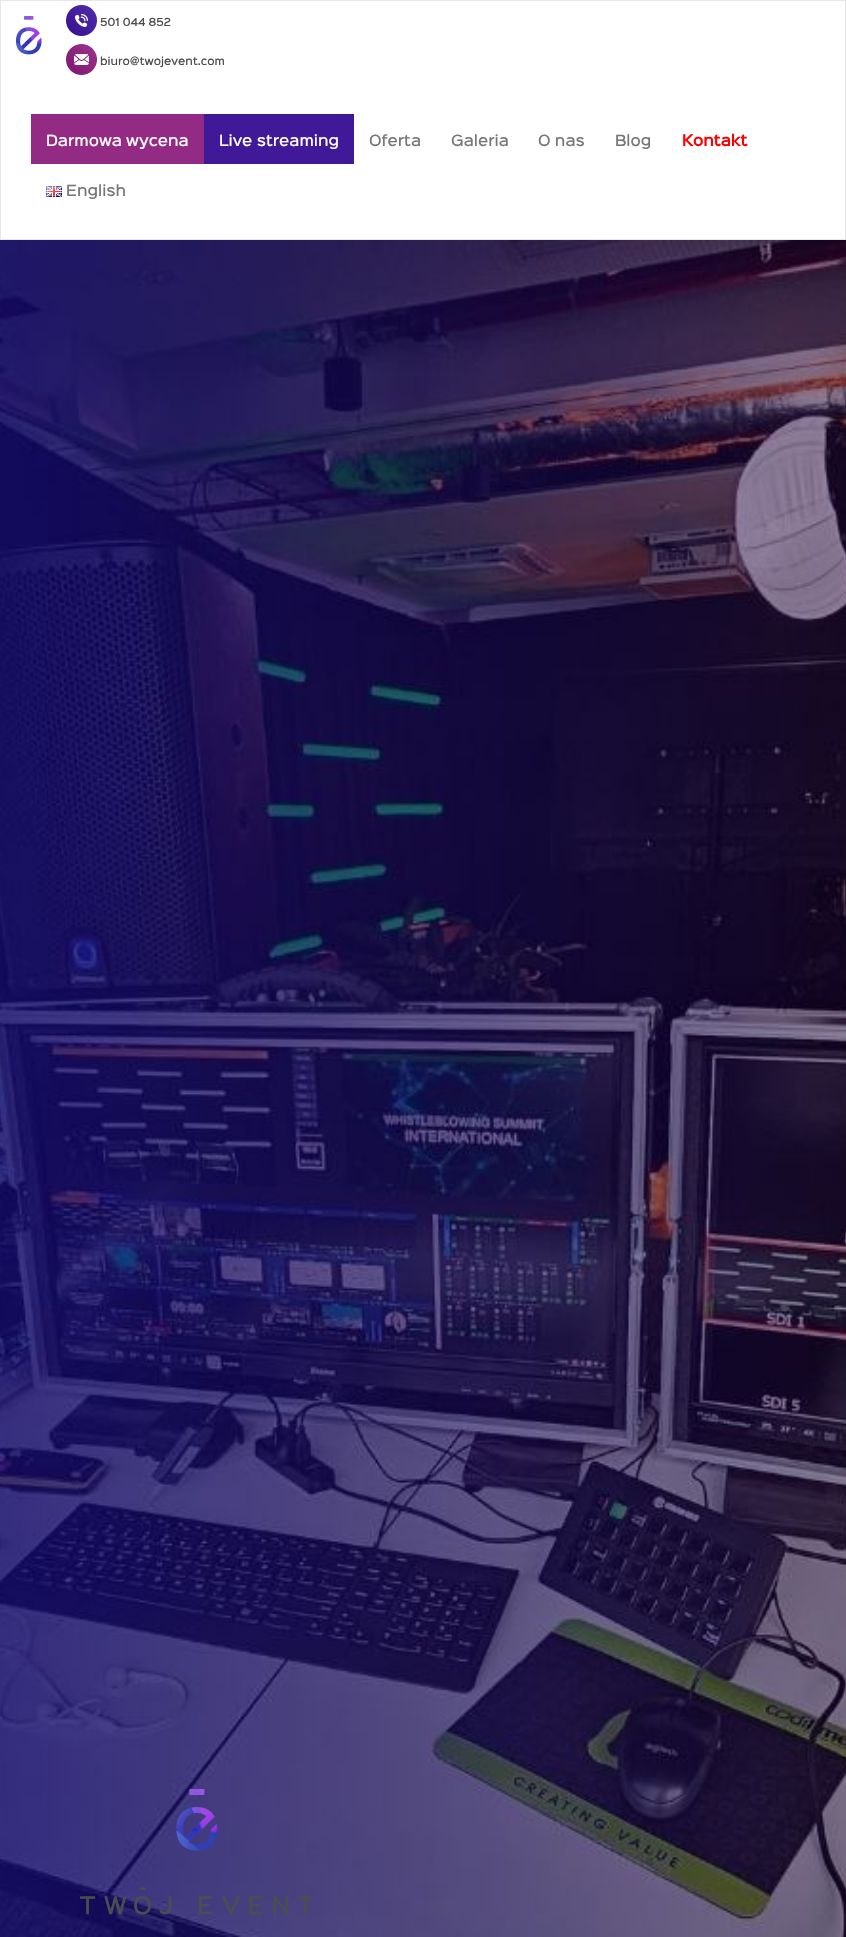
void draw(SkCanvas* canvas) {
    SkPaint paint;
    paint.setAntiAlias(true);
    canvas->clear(0xFFFFFFFF);
    paint.setStyle(SkPaint::kStroke_Style);
    paint.setStrokeWidth(1);
    paint.setColor(0xFFE7E7E7);
    canvas->drawRect(SkRect::MakeXYWH(0.5f, 0.5f, 845, 239), paint);
    canvas->drawImageRect(SkImages::DeferredFromEncodedData(SkData::MakeFromFileName("img1.png")), SkRect::MakeXYWH(16, 16, 26, 39), SkSamplingOptions());
    canvas->drawImageRect(SkImages::DeferredFromEncodedData(SkData::MakeFromFileName("img2.png")), SkRect::MakeXYWH(66, 5, 31, 31), SkSamplingOptions());
    SkFont font1(fontMgr->matchFamilyStyle("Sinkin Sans", SkFontStyle(500, SkFontStyle::kNormal_Width, SkFontStyle::kUpright_Slant)), 10);
    font1.setSubpixel(true);
    paint.setStyle(SkPaint::kFill_Style);
    paint.setColor(0xFF4C4D4F);
    canvas->drawString("501 044 852", 100, 26, font1, paint);
    canvas->drawImageRect(SkImages::DeferredFromEncodedData(SkData::MakeFromFileName("img3.png")), SkRect::MakeXYWH(66, 44, 31, 31), SkSamplingOptions());
    canvas->drawString("biuro@twojevent.com", 100, 65, font1, paint);
    paint.setColor(0xFF932A83);
    canvas->drawRect(SkRect::MakeXYWH(31, 114, 173, 50), paint);
    SkFont font2(fontMgr->matchFamilyStyle("Sinkin Sans", SkFontStyle(500, SkFontStyle::kNormal_Width, SkFontStyle::kUpright_Slant)), 14);
    font2.setSubpixel(true);
    paint.setColor(0xFFFFFFFF);
    canvas->drawString("Darmowa wycena", 46, 146, font2, paint);
    paint.setColor(0xFF401999);
    canvas->drawRect(SkRect::MakeXYWH(204, 114, 150, 50), paint);
    paint.setColor(0xFFFFFFFF);
    canvas->drawString("Live streaming", 219, 146, font2, paint);
    paint.setColor(0xFF777777);
    canvas->drawString("Oferta", 369, 146, font2, paint);
    canvas->drawString("Galeria", 451, 146, font2, paint);
    canvas->drawString("O nas", 538, 146, font2, paint);
    canvas->drawString("Blog", 615, 146, font2, paint);
    SkFont font3(fontMgr->matchFamilyStyle("Sinkin Sans", SkFontStyle::Bold()), 14);
    font3.setSubpixel(true);
    paint.setColor(0xFFFF0000);
    canvas->drawString("Kontakt", 682, 146, font3, paint);
    canvas->drawImageRect(SkImages::DeferredFromEncodedData(SkData::MakeFromFileName("img4.png")), SkRect::MakeXYWH(46, 186, 16, 11), SkSamplingOptions());
    paint.setColor(0xFF777777);
    canvas->drawString("English", 66, 196, font2, paint);
    canvas->drawImageRect(SkImages::DeferredFromEncodedData(SkData::MakeFromFileName("img5.png")), SkRect::MakeXYWH(0, 240, 846, 1697), SkSamplingOptions());
    canvas->drawImageRect(SkImages::DeferredFromEncodedData(SkData::MakeFromFileName("img6.png")), SkRect::MakeXYWH(80, 1789, 233, 126), SkSamplingOptions());
}
